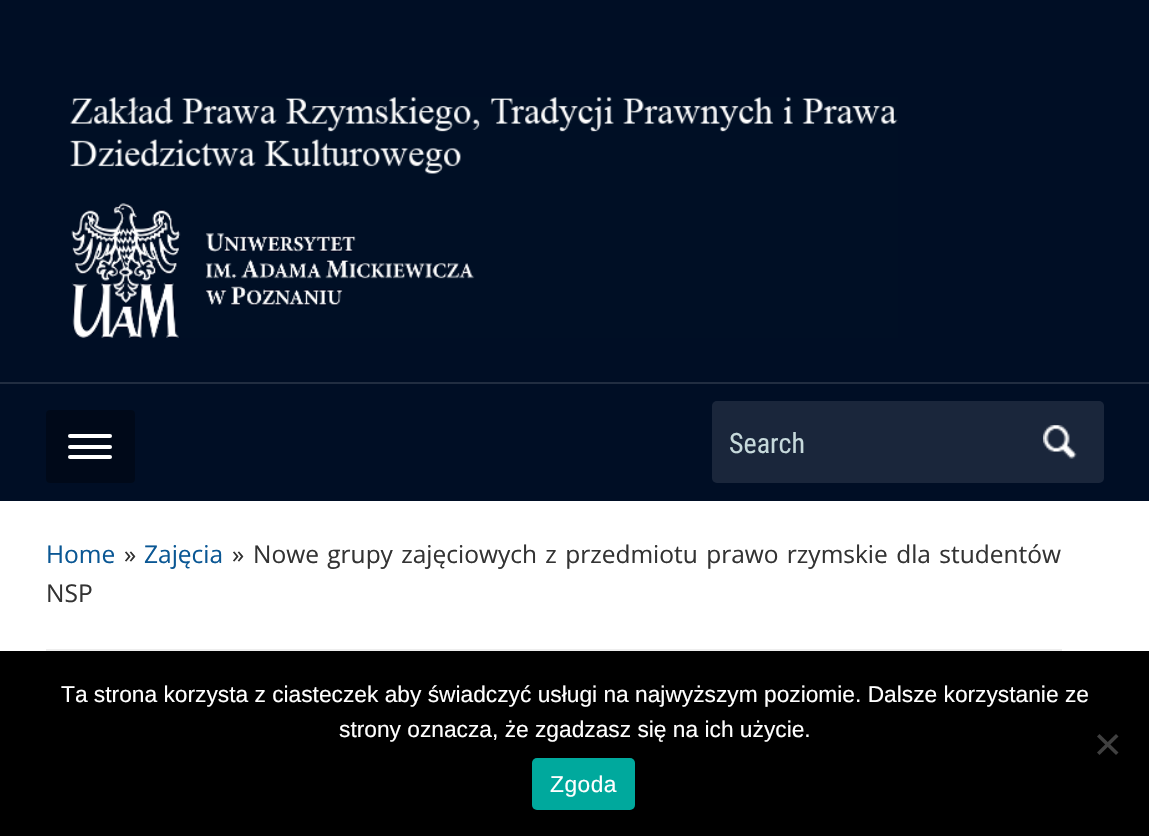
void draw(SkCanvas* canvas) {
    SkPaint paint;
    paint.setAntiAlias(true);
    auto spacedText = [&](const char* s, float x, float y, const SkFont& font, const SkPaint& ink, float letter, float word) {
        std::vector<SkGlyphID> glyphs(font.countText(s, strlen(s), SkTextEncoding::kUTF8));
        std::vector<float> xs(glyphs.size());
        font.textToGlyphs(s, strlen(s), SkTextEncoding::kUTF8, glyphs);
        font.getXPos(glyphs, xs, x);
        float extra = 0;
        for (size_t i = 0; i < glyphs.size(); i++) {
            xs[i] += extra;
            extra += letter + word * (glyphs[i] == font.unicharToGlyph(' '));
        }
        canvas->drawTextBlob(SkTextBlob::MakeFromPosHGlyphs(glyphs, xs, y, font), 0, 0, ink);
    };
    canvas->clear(0xFFFFFFFF);
    paint.setColor(0xFF000E25);
    canvas->drawRect(SkRect::MakeXYWH(0, 0, 1149, 501), paint);
    canvas->drawImageRect(SkImages::DeferredFromEncodedData(SkData::MakeFromFileName("img1.png")), SkRect::MakeXYWH(70, 97, 828, 241), SkSamplingOptions());
    paint.setColor(0xFF212D41);
    canvas->drawRect(SkRect::MakeXYWH(0, 382, 1149, 2), paint);
    paint.setColor(0xFF000919);
    canvas->drawRoundRect(SkRect::MakeXYWH(46, 410, 89, 73), 4, 4, paint);
    paint.setColor(0xFFFFFFFF);
    canvas->drawRoundRect(SkRect::MakeXYWH(68, 434, 44, 4), 2, 2, paint);
    canvas->drawRoundRect(SkRect::MakeXYWH(68, 445, 44, 4), 2, 2, paint);
    canvas->drawRoundRect(SkRect::MakeXYWH(68, 455, 44, 4), 2, 2, paint);
    paint.setColor(0xFF1A263B);
    canvas->drawRoundRect(SkRect::MakeXYWH(712, 401, 392, 82), 5, 5, paint);
    SkFont font1(fontMgr->matchFamilyStyle("Roboto Condensed", SkFontStyle::Normal()), 28);
    font1.setSubpixel(true);
    paint.setColor(0xFFC6D9DB);
    canvas->drawString("Search", 729, 453, font1, paint);
    canvas->drawImageRect(SkImages::DeferredFromEncodedData(SkData::MakeFromFileName("img2.png")), SkRect::MakeXYWH(1043, 425, 34, 34), SkSamplingOptions());
    paint.setColor(0xFFEEEEEE);
    canvas->drawRect(SkRect::MakeXYWH(46, 649, 1016, 2), paint);
    SkFont font2(fontMgr->matchFamilyStyle("Open Sans", SkFontStyle::Normal()), 24.5f);
    font2.setSubpixel(true);
    paint.setColor(0xFF0A5794);
    canvas->drawString("Home", 46, 563, font2, paint);
    paint.setColor(0xFF333333);
    canvas->drawString("»", 124, 563, font2, paint);
    paint.setColor(0xFF0A5794);
    canvas->drawString("Zajęcia", 144, 563, font2, paint);
    paint.setColor(0xFF333333);
    canvas->drawString("»", 232, 563, font2, paint);
    spacedText("Nowe grupy zajęciowych z przedmiotu prawo rzymskie dla studentów", 253, 563, font2, paint, 0, 2);
    canvas->drawString("NSP", 46, 602, font2, paint);
    paint.setColor(0xFF000000);
    canvas->drawRect(SkRect::MakeXYWH(0, 651, 1149, 185), paint);
    SkFont font3(fontMgr->matchFamilyStyle("Liberation Sans", SkFontStyle::Normal()), 22.75f);
    font3.setSubpixel(true);
    paint.setColor(0xFFFFFFFF);
    canvas->drawString("Ta strona korzysta z ciasteczek aby świadczyć usługi na najwyższym poziomie. Dalsze korzystanie ze", 61, 702, font3, paint);
    canvas->drawString("strony oznacza, że zgadzasz się na ich użycie.", 339, 737, font3, paint);
    paint.setColor(0xFF404040);
    canvas->drawPath(SkPathBuilder().moveTo(1116, 734).lineTo(1118.5f, 736.5f).lineTo(1099.5f, 755).lineTo(1097, 752.5f).close().detach(), paint);
    canvas->drawPath(SkPathBuilder().moveTo(1097, 736.5f).lineTo(1099.5f, 734).lineTo(1118.5f, 752.5f).lineTo(1116, 755).close().detach(), paint);
    paint.setColor(0xFF00A99D);
    canvas->drawRoundRect(SkRect::MakeXYWH(532, 758, 103, 52), 5, 5, paint);
    paint.setColor(0xFFFFFFFF);
    spacedText("Zgoda", 550, 792, font3, paint, 0.5f, 0);
}
